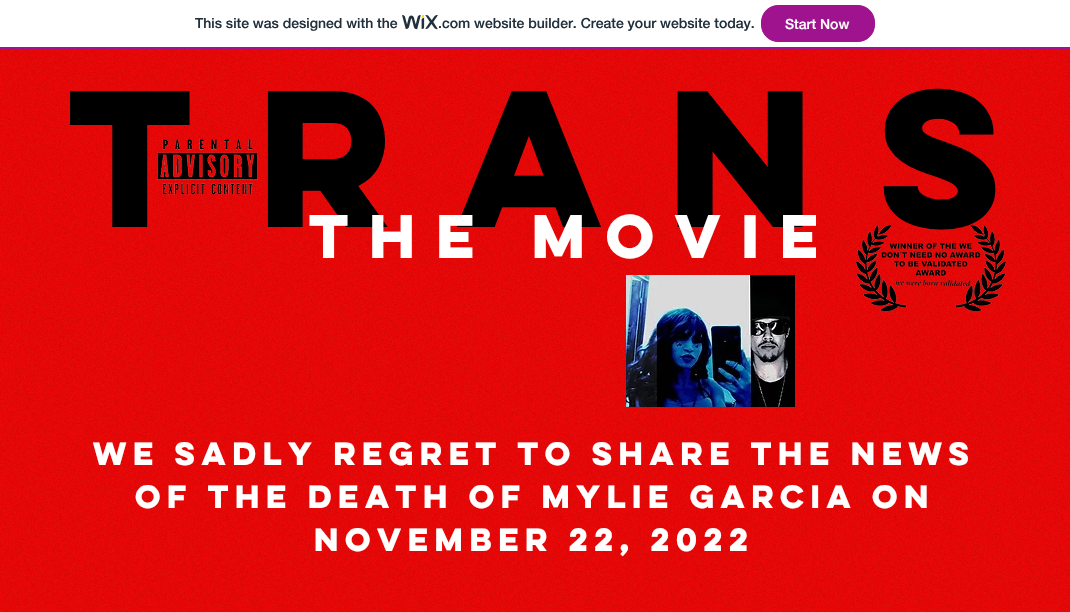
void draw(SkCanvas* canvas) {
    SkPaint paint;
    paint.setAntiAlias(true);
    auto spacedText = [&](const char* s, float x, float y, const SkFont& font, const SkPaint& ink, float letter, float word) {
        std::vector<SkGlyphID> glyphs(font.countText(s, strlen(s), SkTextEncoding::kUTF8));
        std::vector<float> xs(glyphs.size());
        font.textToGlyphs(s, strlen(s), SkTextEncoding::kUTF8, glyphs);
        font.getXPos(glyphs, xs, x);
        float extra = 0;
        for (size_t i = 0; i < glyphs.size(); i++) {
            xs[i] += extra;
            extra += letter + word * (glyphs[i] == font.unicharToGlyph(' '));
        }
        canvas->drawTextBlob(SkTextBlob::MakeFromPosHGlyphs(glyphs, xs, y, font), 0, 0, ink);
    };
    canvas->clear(0xFFEB0505);
    paint.setColor(0xFFFFFFFF);
    canvas->drawRect(SkRect::MakeXYWH(0, 0, 1070, 47), paint);
    paint.setColor(0xFFA0138E);
    canvas->drawRect(SkRect::MakeXYWH(0, 47, 1070, 3), paint);
    SkFont font1(fontMgr->matchFamilyStyle("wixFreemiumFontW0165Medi", SkFontStyle(500, SkFontStyle::kNormal_Width, SkFontStyle::kUpright_Slant)), 14);
    font1.setSubpixel(true);
    paint.setColor(0xFF20303C);
    canvas->drawString("This site was designed with the", 195, 28, font1, paint);
    canvas->drawImageRect(SkImages::DeferredFromEncodedData(SkData::MakeFromFileName("img1.png")), SkRect::MakeXYWH(402, 15, 36, 15), SkSamplingOptions());
    canvas->drawString(".com website builder. Create your website today.", 438, 28, font1, paint);
    paint.setColor(0xFFA0138E);
    canvas->drawRoundRect(SkRect::MakeXYWH(761.5f, 5.5f, 113, 36), 16.5f, 16.5f, paint);
    paint.setStyle(SkPaint::kStroke_Style);
    paint.setStrokeWidth(1);
    canvas->drawRoundRect(SkRect::MakeXYWH(761.5f, 5.5f, 113, 36), 16.5f, 16.5f, paint);
    paint.setStyle(SkPaint::kFill_Style);
    paint.setColor(0xFFFFFFFF);
    canvas->drawString("Start Now", 785, 29, font1, paint);
    canvas->drawImageRect(SkImages::DeferredFromEncodedData(SkData::MakeFromFileName("img2.png")), SkRect::MakeXYWH(0, 50, 1070, 562), SkSamplingOptions());
    canvas->drawImageRect(SkImages::DeferredFromEncodedData(SkData::MakeFromFileName("img3.png")), SkRect::MakeXYWH(157, 139, 101, 56), SkSamplingOptions());
    SkFont font2(fontMgr->matchFamilyStyle("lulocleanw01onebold", SkFontStyle::Bold()), 174);
    font2.setSubpixel(true);
    paint.setColor(0xFF000000);
    spacedText("trans", 68, 227, font2, paint, 26, 0);
    SkFont font3(fontMgr->matchFamilyStyle("lulocleanw01onebold", SkFontStyle::Bold()), 55);
    font3.setSubpixel(true);
    paint.setColor(0xFFFFFFFF);
    spacedText("the movie", 309, 258, font3, paint, 8.25f, 0);
    canvas->drawImageRect(SkImages::DeferredFromEncodedData(SkData::MakeFromFileName("img4.png")), SkRect::MakeXYWH(856, 225, 150, 86), SkSamplingOptions());
    canvas->drawImageRect(SkImages::DeferredFromEncodedData(SkData::MakeFromFileName("img5.png")), SkRect::MakeXYWH(626, 275, 169, 132), SkSamplingOptions());
    SkFont font4(fontMgr->matchFamilyStyle("lulocleanw01onebold", SkFontStyle::Bold()), 29);
    font4.setSubpixel(true);
    canvas->drawString("WE SADLY REGRET TO SHARE THE NEWS", 93, 465, font4, paint);
    canvas->drawString("OF THE DEATH OF MYLIE GARCIA ON", 135, 508, font4, paint);
    canvas->drawString("NOVEMBER 22, 2022", 314, 551, font4, paint);
}
